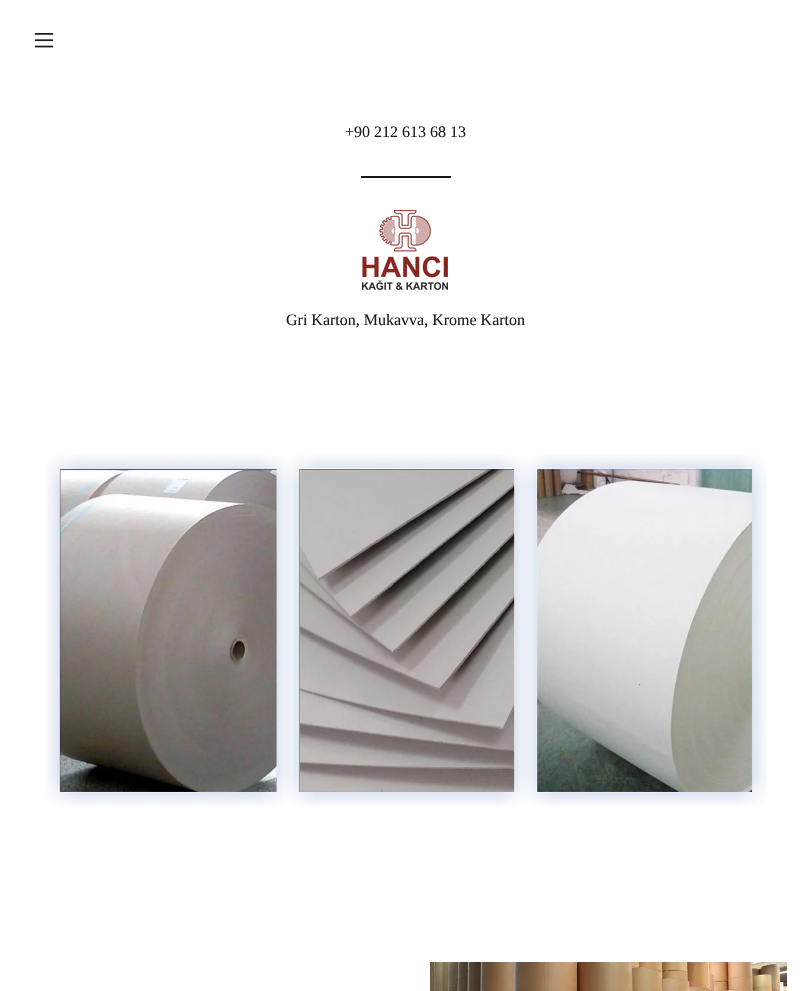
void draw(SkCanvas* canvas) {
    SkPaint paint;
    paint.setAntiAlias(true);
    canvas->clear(0xFFFFFFFF);
    canvas->drawImageRect(SkImages::DeferredFromEncodedData(SkData::MakeFromFileName("img1.png")), SkRect::MakeXYWH(34, 33, 20, 15), SkSamplingOptions());
    SkFont font1(fontMgr->matchFamilyStyle("Liberation Serif", SkFontStyle::Normal()), 16);
    font1.setSubpixel(true);
    paint.setColor(0xFF1B1B1B);
    canvas->drawString("+90 212 613 68 13", 345, 137, font1, paint);
    paint.setColor(0xFF161616);
    canvas->drawRect(SkRect::MakeXYWH(361, 176, 90, 2), paint);
    canvas->drawImageRect(SkImages::DeferredFromEncodedData(SkData::MakeFromFileName("img2.png")), SkRect::MakeXYWH(362, 210, 86, 80), SkSamplingOptions());
    paint.setColor(0xFF1B1B1B);
    canvas->drawString("Gri Karton, Mukavva, Krome Karton", 286, 325, font1, paint);
    canvas->drawImageRect(SkImages::DeferredFromEncodedData(SkData::MakeFromFileName("img3.png")), SkRect::MakeXYWH(45, 454, 722, 352), SkSamplingOptions());
    canvas->drawImageRect(SkImages::DeferredFromEncodedData(SkData::MakeFromFileName("img4.png")), SkRect::MakeXYWH(430, 962, 357, 29), SkSamplingOptions());
}
